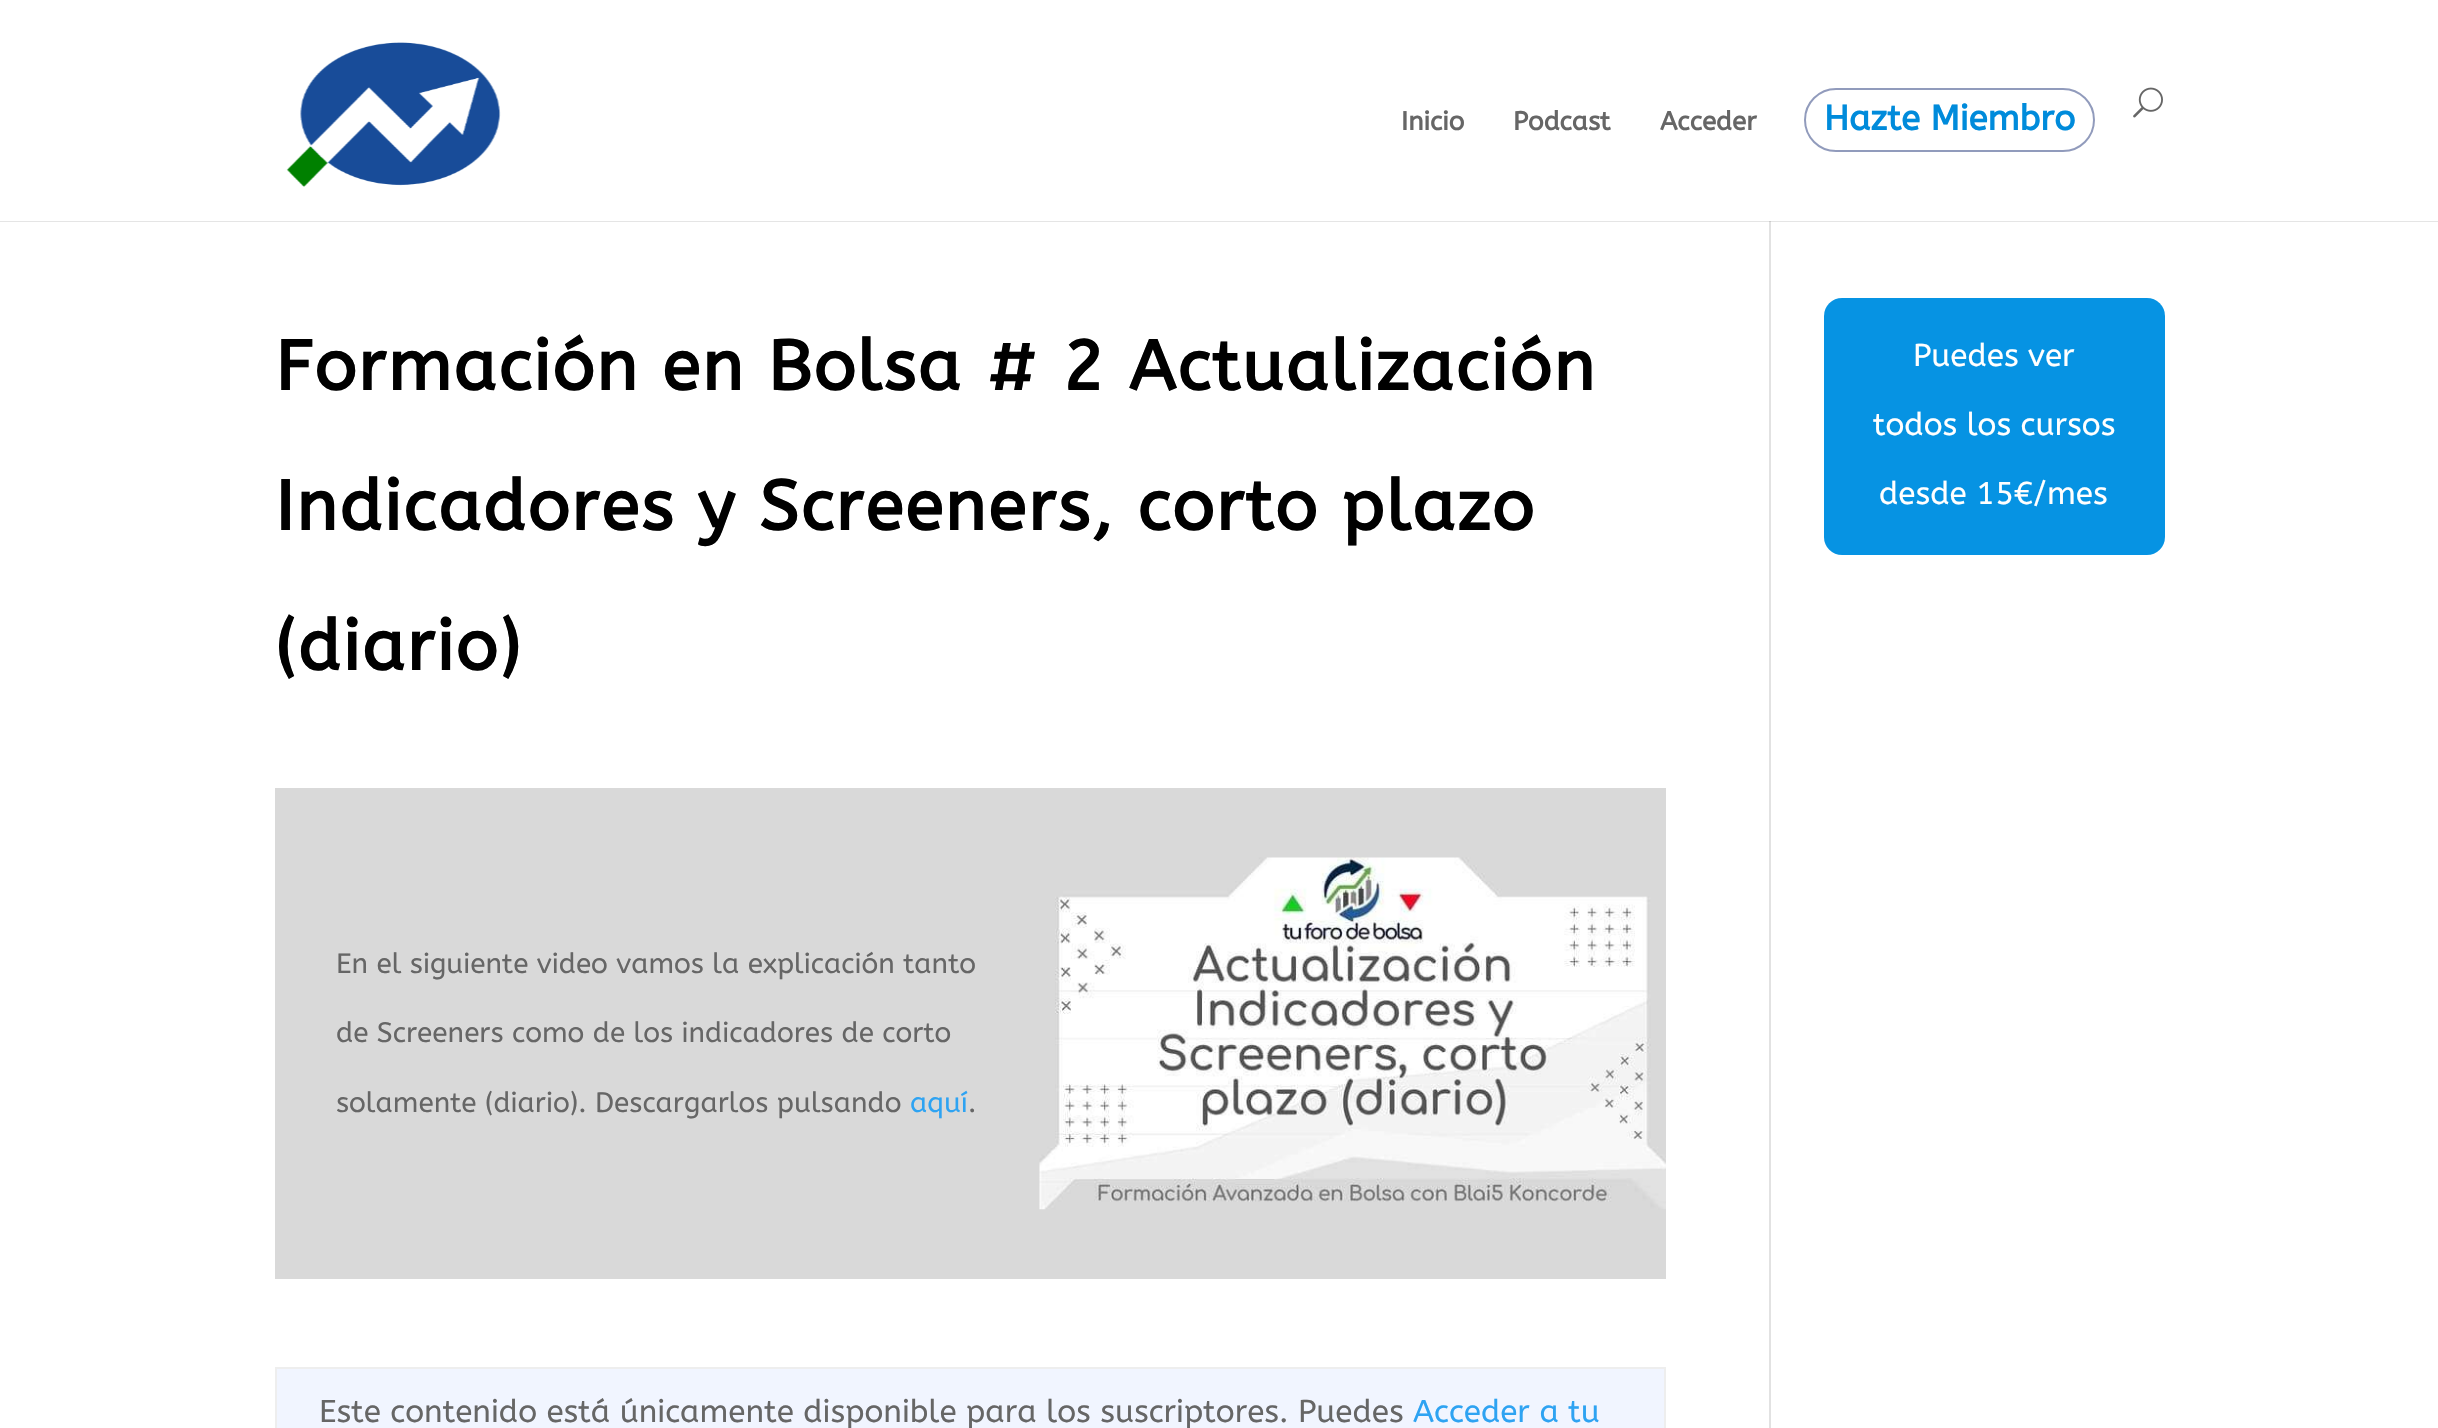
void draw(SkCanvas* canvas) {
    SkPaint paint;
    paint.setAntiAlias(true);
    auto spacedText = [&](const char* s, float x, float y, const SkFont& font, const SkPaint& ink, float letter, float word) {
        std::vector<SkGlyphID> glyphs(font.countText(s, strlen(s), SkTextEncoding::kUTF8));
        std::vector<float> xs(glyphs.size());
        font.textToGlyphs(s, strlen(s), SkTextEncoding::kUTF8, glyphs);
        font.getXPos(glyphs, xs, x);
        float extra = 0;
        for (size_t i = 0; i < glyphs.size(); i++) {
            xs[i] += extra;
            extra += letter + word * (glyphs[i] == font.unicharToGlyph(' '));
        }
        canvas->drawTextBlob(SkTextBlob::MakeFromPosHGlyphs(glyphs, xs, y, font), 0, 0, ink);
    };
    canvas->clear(0xFFFFFFFF);
    paint.setColor(0xFFE2E2E2);
    canvas->drawRect(SkRect::MakeXYWH(1769, 221, 2, 1207), paint);
    paint.setColor(0x1A000000);
    canvas->drawPath(SkPathBuilder().moveTo(0, 220).lineTo(0, 222).lineTo(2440, 222).lineTo(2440, 2).lineTo(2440, 220).close().detach(), paint);
    paint.setColor(0xFFFFFFFF);
    canvas->drawRect(SkRect::MakeXYWH(0, 220, 2438, 1), paint);
    canvas->drawImageRect(SkImages::DeferredFromEncodedData(SkData::MakeFromFileName("img1.png")), SkRect::MakeXYWH(286, 42, 215, 145), SkSamplingOptions());
    SkFont font1(fontMgr->matchFamilyStyle("ABeeZee", SkFontStyle::Bold()), 26);
    font1.setSubpixel(true);
    paint.setColor(0xFF666666);
    canvas->drawString("Inicio", 1401, 130, font1, paint);
    canvas->drawString("Podcast", 1513, 130, font1, paint);
    canvas->drawString("Acceder", 1660, 130, font1, paint);
    paint.setStyle(SkPaint::kStroke_Style);
    paint.setStrokeWidth(2);
    paint.setColor(0xFF919BBC);
    canvas->drawRoundRect(SkRect::MakeXYWH(1805, 89, 289, 62), 31, 31, paint);
    SkFont font2(fontMgr->matchFamilyStyle("ABeeZee", SkFontStyle::Bold()), 35);
    font2.setSubpixel(true);
    paint.setStyle(SkPaint::kFill_Style);
    paint.setColor(0xFF008BDB);
    canvas->drawString("Hazte Miembro", 1824, 130, font2, paint);
    canvas->drawImageRect(SkImages::DeferredFromEncodedData(SkData::MakeFromFileName("img2.png")), SkRect::MakeXYWH(2133, 87, 30, 31), SkSamplingOptions());
    SkFont font3(fontMgr->matchFamilyStyle("ABeeZee", SkFontStyle::Bold()), 70);
    font3.setSubpixel(true);
    paint.setColor(0xFF000000);
    spacedText("Formación en Bolsa # 2 Actualización", 275, 390, font3, paint, 1.75f, 0);
    spacedText("Indicadores y Screeners, corto plazo", 275, 530, font3, paint, 1.75f, 0);
    spacedText("(diario)", 275, 670, font3, paint, 1.75f, 0);
    paint.setColor(0xFFD9D9D9);
    canvas->drawRect(SkRect::MakeXYWH(275, 788, 1391, 491), paint);
    SkFont font4(fontMgr->matchFamilyStyle("ABeeZee", SkFontStyle::Normal()), 28);
    font4.setSubpixel(true);
    paint.setColor(0xFF666666);
    canvas->drawString("En el siguiente video vamos la explicación tanto", 336, 973, font4, paint);
    canvas->drawString("de Screeners como de los indicadores de corto", 336, 1042, font4, paint);
    canvas->drawString("solamente (diario). Descargarlos pulsando", 336, 1112, font4, paint);
    paint.setColor(0xFF2EA3F2);
    canvas->drawString("aquí", 910, 1112, font4, paint);
    paint.setColor(0xFF666666);
    canvas->drawString(".", 968, 1112, font4, paint);
    canvas->drawImageRect(SkImages::DeferredFromEncodedData(SkData::MakeFromFileName("img3.png")), SkRect::MakeXYWH(1039, 857, 627, 353), SkSamplingOptions());
    paint.setColor(0xFFEEEEEE);
    canvas->drawRect(SkRect::MakeXYWH(275, 1367, 1391, 2), paint);
    canvas->drawRect(SkRect::MakeXYWH(1664, 1367, 2, 61), paint);
    canvas->drawRect(SkRect::MakeXYWH(275, 1367, 2, 61), paint);
    paint.setColor(0xFFF1F5FF);
    canvas->drawRect(SkRect::MakeXYWH(277, 1369, 1387, 59), paint);
    SkFont font5(fontMgr->matchFamilyStyle("ABeeZee", SkFontStyle::Normal()), 31.5f);
    font5.setSubpixel(true);
    paint.setColor(0xFF666666);
    canvas->drawString("Este contenido está únicamente disponible para los suscriptores. Puedes", 319, 1422, font5, paint);
    paint.setColor(0xFF2EA3F2);
    canvas->drawString("Acceder a tu", 1413, 1422, font5, paint);
    paint.setColor(0xFF0693E3);
    canvas->drawRoundRect(SkRect::MakeXYWH(1824, 298, 341, 257), 18, 18, paint);
    paint.setColor(0xFFFFFFFF);
    canvas->drawString("Puedes ver", 1913, 366, font5, paint);
    canvas->drawString("todos los cursos", 1873, 435, font5, paint);
    canvas->drawString("desde 15€/mes", 1879, 504, font5, paint);
}
